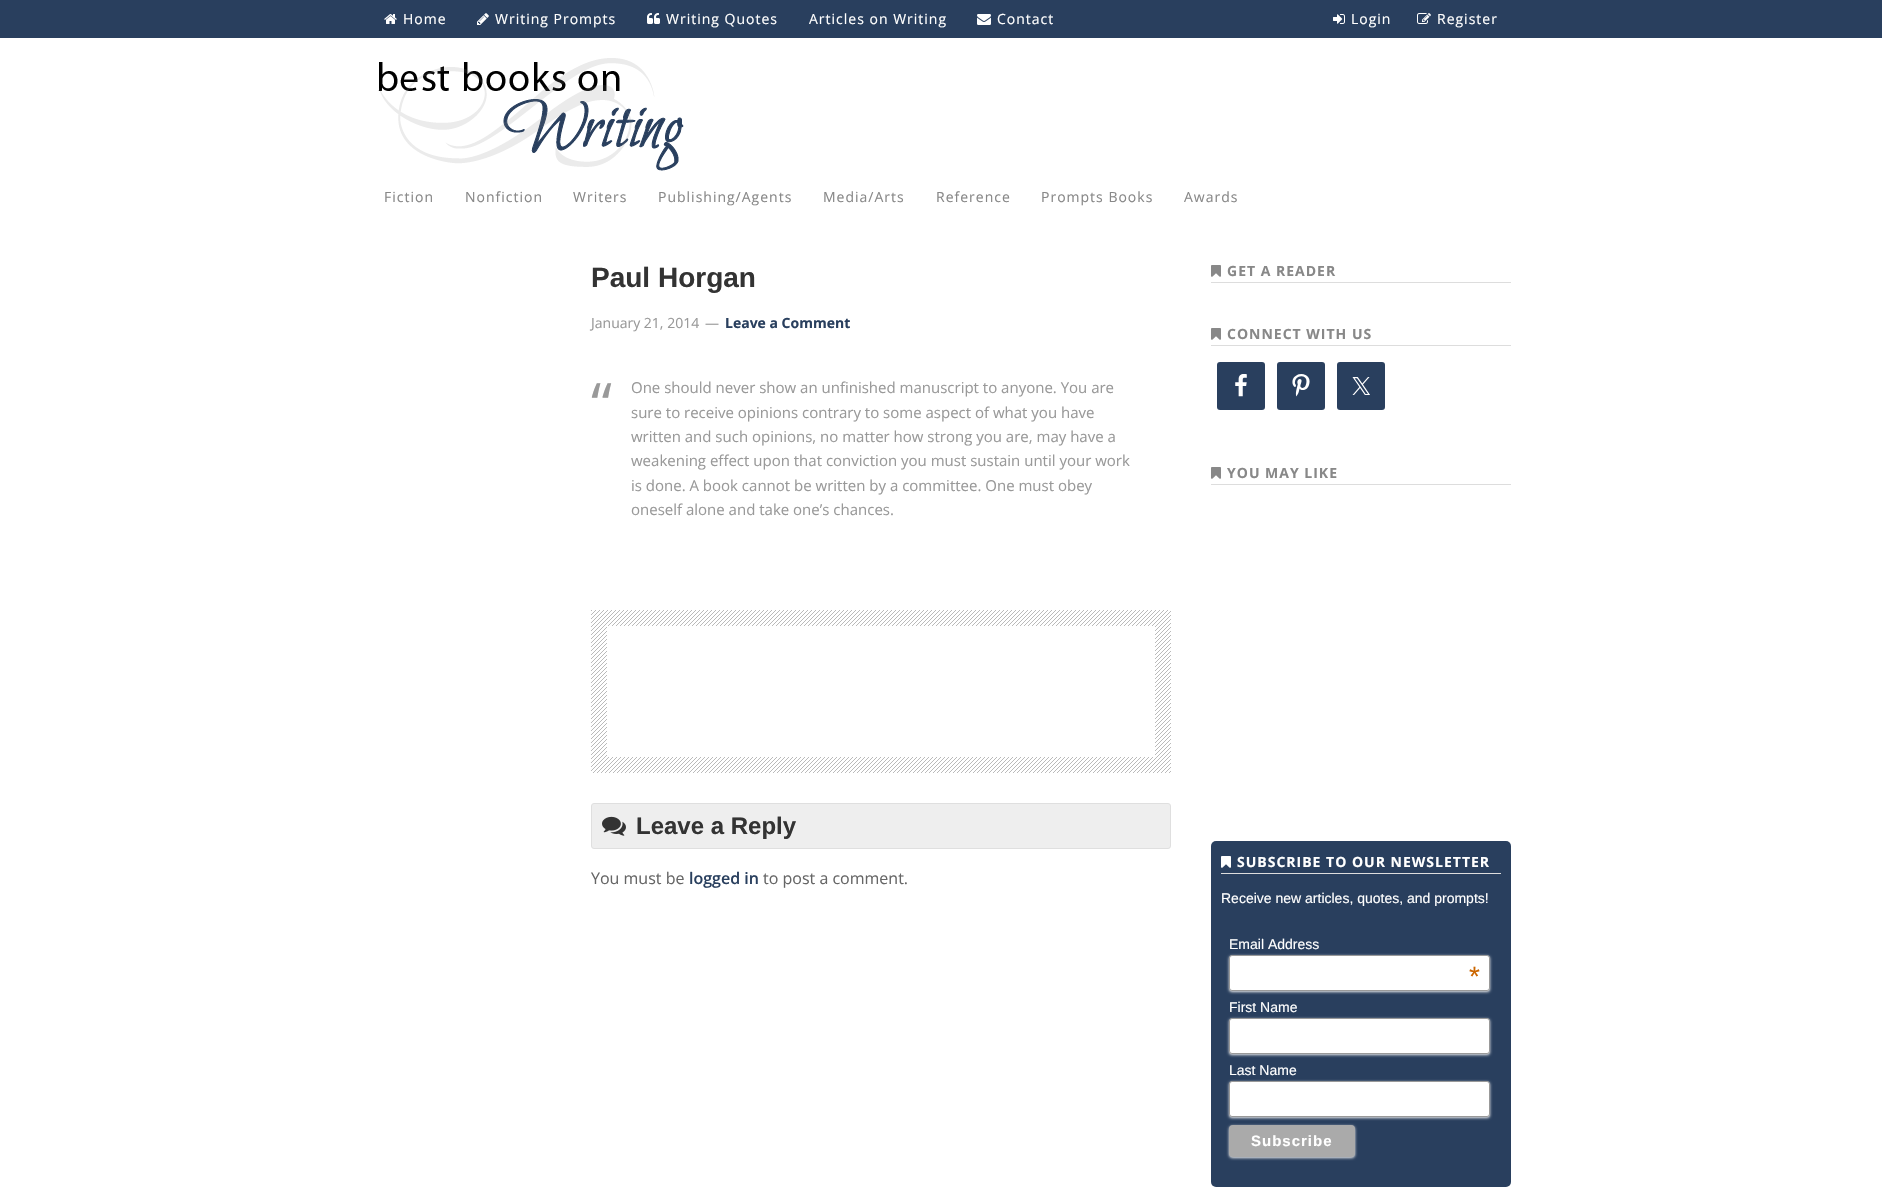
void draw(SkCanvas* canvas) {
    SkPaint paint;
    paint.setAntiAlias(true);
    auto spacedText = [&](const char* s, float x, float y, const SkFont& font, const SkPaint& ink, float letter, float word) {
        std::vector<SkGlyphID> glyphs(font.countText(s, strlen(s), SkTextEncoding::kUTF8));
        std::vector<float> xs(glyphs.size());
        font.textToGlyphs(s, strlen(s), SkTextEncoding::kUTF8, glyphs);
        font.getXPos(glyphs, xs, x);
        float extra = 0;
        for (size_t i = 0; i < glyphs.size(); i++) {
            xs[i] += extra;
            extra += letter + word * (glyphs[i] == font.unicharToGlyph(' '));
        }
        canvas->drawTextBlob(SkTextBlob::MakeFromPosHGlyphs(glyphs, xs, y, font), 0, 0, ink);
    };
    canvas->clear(0xFFFFFFFF);
    paint.setColor(0xFF293F5E);
    canvas->drawRect(SkRect::MakeXYWH(0, 0, 1882, 38), paint);
    canvas->drawImageRect(SkImages::DeferredFromEncodedData(SkData::MakeFromFileName("img1.png")), SkRect::MakeXYWH(384, 14, 13, 10), SkSamplingOptions());
    SkFont font1(fontMgr->matchFamilyStyle("Open Sans", SkFontStyle::Normal()), 14);
    font1.setSubpixel(true);
    paint.setColor(0xFFFFFFFF);
    spacedText("Home", 403, 24, font1, paint, 1, 0);
    canvas->drawImageRect(SkImages::DeferredFromEncodedData(SkData::MakeFromFileName("img2.png")), SkRect::MakeXYWH(477, 13, 12, 12), SkSamplingOptions());
    spacedText("Writing Prompts", 495, 24, font1, paint, 1, 0);
    canvas->drawImageRect(SkImages::DeferredFromEncodedData(SkData::MakeFromFileName("img3.png")), SkRect::MakeXYWH(647, 13, 13, 11), SkSamplingOptions());
    spacedText("Writing Quotes", 666, 24, font1, paint, 1, 0);
    spacedText("Articles on Writing", 809, 24, font1, paint, 1, 0);
    canvas->drawImageRect(SkImages::DeferredFromEncodedData(SkData::MakeFromFileName("img4.png")), SkRect::MakeXYWH(977, 14, 14, 11), SkSamplingOptions());
    spacedText("Contact", 997, 24, font1, paint, 1, 0);
    canvas->drawImageRect(SkImages::DeferredFromEncodedData(SkData::MakeFromFileName("img5.png")), SkRect::MakeXYWH(1333, 14, 12, 10), SkSamplingOptions());
    spacedText("Login", 1351, 24, font1, paint, 1, 0);
    canvas->drawImageRect(SkImages::DeferredFromEncodedData(SkData::MakeFromFileName("img6.png")), SkRect::MakeXYWH(1417, 13, 14, 11), SkSamplingOptions());
    spacedText("Register", 1437, 24, font1, paint, 1, 0);
    canvas->drawImageRect(SkImages::DeferredFromEncodedData(SkData::MakeFromFileName("img7.png")), SkRect::MakeXYWH(378, 58, 306, 113), SkSamplingOptions());
    paint.setColor(0xFF888888);
    spacedText("Fiction", 384, 202, font1, paint, 1, 0);
    spacedText("Nonfiction", 465, 202, font1, paint, 1, 0);
    spacedText("Writers", 573, 202, font1, paint, 1, 0);
    spacedText("Publishing/Agents", 658, 202, font1, paint, 1, 0);
    spacedText("Media/Arts", 823, 202, font1, paint, 1, 0);
    spacedText("Reference", 936, 202, font1, paint, 1, 0);
    spacedText("Prompts Books", 1041, 202, font1, paint, 1, 0);
    spacedText("Awards", 1184, 202, font1, paint, 1, 0);
    SkFont font2(fontMgr->matchFamilyStyle("Liberation Sans", SkFontStyle::Bold()), 28);
    font2.setSubpixel(true);
    paint.setColor(0xFF333333);
    canvas->drawString("Paul Horgan", 591, 287, font2, paint);
    paint.setColor(0xFF999999);
    canvas->drawString("January 21, 2014", 591, 328, font1, paint);
    canvas->drawString("—", 705, 328, font1, paint);
    SkFont font3(fontMgr->matchFamilyStyle("Open Sans", SkFontStyle::Bold()), 14);
    font3.setSubpixel(true);
    paint.setColor(0xFF293F5E);
    canvas->drawString("Leave a Comment", 725, 328, font3, paint);
    SkFont font4(fontMgr->matchFamilyStyle("Open Sans", SkFontStyle::Normal()), 60);
    font4.setSubpixel(true);
    paint.setColor(0xFF999999);
    canvas->drawString("“", 591, 426, font4, paint);
    SkFont font5(fontMgr->matchFamilyStyle("Open Sans", SkFontStyle::Normal()), 15);
    font5.setSubpixel(true);
    canvas->drawString("One should never show an unfinished manuscript to anyone. You are", 631, 393, font5, paint);
    canvas->drawString("sure to receive opinions contrary to some aspect of what you have", 631, 418, font5, paint);
    canvas->drawString("written and such opinions, no matter how strong you are, may have a", 631, 442, font5, paint);
    canvas->drawString("weakening effect upon that conviction you must sustain until your work", 631, 466, font5, paint);
    canvas->drawString("is done. A book cannot be written by a committee. One must obey", 631, 491, font5, paint);
    canvas->drawString("oneself alone and take one’s chances.", 631, 515, font5, paint);
    canvas->drawImageRect(SkImages::DeferredFromEncodedData(SkData::MakeFromFileName("img8.png")), SkRect::MakeXYWH(591, 610, 580, 163), SkSamplingOptions());
    paint.setColor(0xFFFFFFFF);
    canvas->drawRect(SkRect::MakeXYWH(607, 626, 548, 131), paint);
    paint.setColor(0xFFEEEEEE);
    canvas->drawRoundRect(SkRect::MakeXYWH(591.5f, 803.5f, 579, 45), 2.5f, 2.5f, paint);
    paint.setStyle(SkPaint::kStroke_Style);
    paint.setStrokeWidth(1);
    paint.setColor(0xFFDFDFDF);
    canvas->drawRoundRect(SkRect::MakeXYWH(591.5f, 803.5f, 579, 45), 2.5f, 2.5f, paint);
    canvas->drawImageRect(SkImages::DeferredFromEncodedData(SkData::MakeFromFileName("img9.png")), SkRect::MakeXYWH(602, 816, 24, 20), SkSamplingOptions());
    SkFont font6(fontMgr->matchFamilyStyle("Liberation Sans", SkFontStyle::Bold()), 24);
    font6.setSubpixel(true);
    paint.setStyle(SkPaint::kFill_Style);
    paint.setColor(0xFF333333);
    canvas->drawString("Leave a Reply", 636, 834, font6, paint);
    SkFont font7(fontMgr->matchFamilyStyle("Open Sans", SkFontStyle::Normal()), 16);
    font7.setSubpixel(true);
    paint.setColor(0xFF666666);
    canvas->drawString("You must be", 591, 884, font7, paint);
    SkFont font8(fontMgr->matchFamilyStyle("Open Sans", SkFontStyle(600, SkFontStyle::kNormal_Width, SkFontStyle::kUpright_Slant)), 16);
    font8.setSubpixel(true);
    paint.setColor(0xFF293F5E);
    canvas->drawString("logged in", 689, 884, font8, paint);
    paint.setColor(0xFF666666);
    canvas->drawString("to post a comment.", 763, 884, font7, paint);
    paint.setColor(0xFFDDDDDD);
    canvas->drawRect(SkRect::MakeXYWH(1211, 282, 300, 1), paint);
    canvas->drawImageRect(SkImages::DeferredFromEncodedData(SkData::MakeFromFileName("img10.png")), SkRect::MakeXYWH(1211, 265, 10, 12), SkSamplingOptions());
    paint.setColor(0xFF888888);
    spacedText("GET A READER", 1227, 276, font3, paint, 1, 0);
    paint.setColor(0xFFDDDDDD);
    canvas->drawRect(SkRect::MakeXYWH(1211, 345, 300, 1), paint);
    canvas->drawImageRect(SkImages::DeferredFromEncodedData(SkData::MakeFromFileName("img10.png")), SkRect::MakeXYWH(1211, 328, 10, 12), SkSamplingOptions());
    paint.setColor(0xFF888888);
    spacedText("CONNECT WITH US", 1227, 339, font3, paint, 1, 0);
    paint.setColor(0xFF293F5E);
    canvas->drawRoundRect(SkRect::MakeXYWH(1217, 362, 48, 48), 3, 3, paint);
    canvas->drawImageRect(SkImages::DeferredFromEncodedData(SkData::MakeFromFileName("img11.png")), SkRect::MakeXYWH(1235, 374, 12, 23), SkSamplingOptions());
    canvas->drawRoundRect(SkRect::MakeXYWH(1277, 362, 48, 48), 3, 3, paint);
    canvas->drawImageRect(SkImages::DeferredFromEncodedData(SkData::MakeFromFileName("img12.png")), SkRect::MakeXYWH(1292, 374, 18, 23), SkSamplingOptions());
    canvas->drawRoundRect(SkRect::MakeXYWH(1337, 362, 48, 48), 3, 3, paint);
    canvas->drawImageRect(SkImages::DeferredFromEncodedData(SkData::MakeFromFileName("img13.png")), SkRect::MakeXYWH(1352, 377, 18, 18), SkSamplingOptions());
    paint.setColor(0xFFDDDDDD);
    canvas->drawRect(SkRect::MakeXYWH(1211, 484, 300, 1), paint);
    canvas->drawImageRect(SkImages::DeferredFromEncodedData(SkData::MakeFromFileName("img10.png")), SkRect::MakeXYWH(1211, 467, 10, 12), SkSamplingOptions());
    paint.setColor(0xFF888888);
    spacedText("YOU MAY LIKE", 1227, 478, font3, paint, 1, 0);
    paint.setColor(0xFF293F5E);
    canvas->drawRoundRect(SkRect::MakeXYWH(1211, 841, 300, 346), 5, 5, paint);
    paint.setColor(0xFFDDDDDD);
    canvas->drawRect(SkRect::MakeXYWH(1221, 873, 280, 1), paint);
    canvas->drawImageRect(SkImages::DeferredFromEncodedData(SkData::MakeFromFileName("img14.png")), SkRect::MakeXYWH(1221, 856, 10, 12), SkSamplingOptions());
    paint.setColor(0xFFFFFFFF);
    spacedText("SUBSCRIBE TO OUR NEWSLETTER", 1237, 867, font3, paint, 1, 0);
    SkFont font9(fontMgr->matchFamilyStyle("Liberation Sans", SkFontStyle::Normal()), 14);
    font9.setSubpixel(true);
    canvas->drawString("Receive new articles, quotes, and prompts!", 1221, 903, font9, paint);
    canvas->drawString("Email Address", 1229, 949, font9, paint);
    paint.setColor(0xFFEEEEEE);
    paint.setMaskFilter(SkMaskFilter::MakeBlur(kNormal_SkBlurStyle, 1.5f));
    canvas->drawRoundRect(SkRect::MakeXYWH(1229, 956, 261, 36), 3, 3, paint);
    paint.setMaskFilter(nullptr);
    paint.setColor(0xFFFFFFFF);
    canvas->drawRoundRect(SkRect::MakeXYWH(1229.5f, 955.5f, 260, 35), 2.5f, 2.5f, paint);
    paint.setStyle(SkPaint::kStroke_Style);
    paint.setColor(0xFF999999);
    canvas->drawRoundRect(SkRect::MakeXYWH(1229.5f, 955.5f, 260, 35), 2.5f, 2.5f, paint);
    SkFont font10(fontMgr->matchFamilyStyle("Liberation Sans", SkFontStyle::Normal()), 28);
    font10.setSubpixel(true);
    paint.setStyle(SkPaint::kFill_Style);
    paint.setColor(0xFFCC6600);
    canvas->drawString("*", 1469, 986, font10, paint);
    paint.setColor(0xFFFFFFFF);
    canvas->drawString("First Name", 1229, 1012, font9, paint);
    paint.setColor(0xFFEEEEEE);
    paint.setMaskFilter(SkMaskFilter::MakeBlur(kNormal_SkBlurStyle, 1.5f));
    canvas->drawRoundRect(SkRect::MakeXYWH(1229, 1019, 261, 36), 3, 3, paint);
    paint.setMaskFilter(nullptr);
    paint.setColor(0xFFFFFFFF);
    canvas->drawRoundRect(SkRect::MakeXYWH(1229.5f, 1018.5f, 260, 35), 2.5f, 2.5f, paint);
    paint.setStyle(SkPaint::kStroke_Style);
    paint.setColor(0xFF999999);
    canvas->drawRoundRect(SkRect::MakeXYWH(1229.5f, 1018.5f, 260, 35), 2.5f, 2.5f, paint);
    paint.setStyle(SkPaint::kFill_Style);
    paint.setColor(0xFFFFFFFF);
    canvas->drawString("Last Name", 1229, 1075, font9, paint);
    paint.setColor(0xFFEEEEEE);
    paint.setMaskFilter(SkMaskFilter::MakeBlur(kNormal_SkBlurStyle, 1.5f));
    canvas->drawRoundRect(SkRect::MakeXYWH(1229, 1082, 261, 36), 3, 3, paint);
    paint.setMaskFilter(nullptr);
    paint.setColor(0xFFFFFFFF);
    canvas->drawRoundRect(SkRect::MakeXYWH(1229.5f, 1081.5f, 260, 35), 2.5f, 2.5f, paint);
    paint.setStyle(SkPaint::kStroke_Style);
    paint.setColor(0xFF999999);
    canvas->drawRoundRect(SkRect::MakeXYWH(1229.5f, 1081.5f, 260, 35), 2.5f, 2.5f, paint);
    paint.setStyle(SkPaint::kFill_Style);
    paint.setColor(0xFFEEEEEE);
    paint.setMaskFilter(SkMaskFilter::MakeBlur(kNormal_SkBlurStyle, 1.5f));
    canvas->drawRoundRect(SkRect::MakeXYWH(1229, 1126, 126, 32), 4, 4, paint);
    paint.setMaskFilter(nullptr);
    paint.setColor(0xFFAAAAAA);
    canvas->drawRoundRect(SkRect::MakeXYWH(1229, 1125, 126, 32), 4, 4, paint);
    SkFont font11(fontMgr->matchFamilyStyle("Liberation Sans", SkFontStyle::Bold()), 15);
    font11.setSubpixel(true);
    paint.setColor(0xFFFFFFFF);
    spacedText("Subscribe", 1251, 1146, font11, paint, 1, 0);
}
